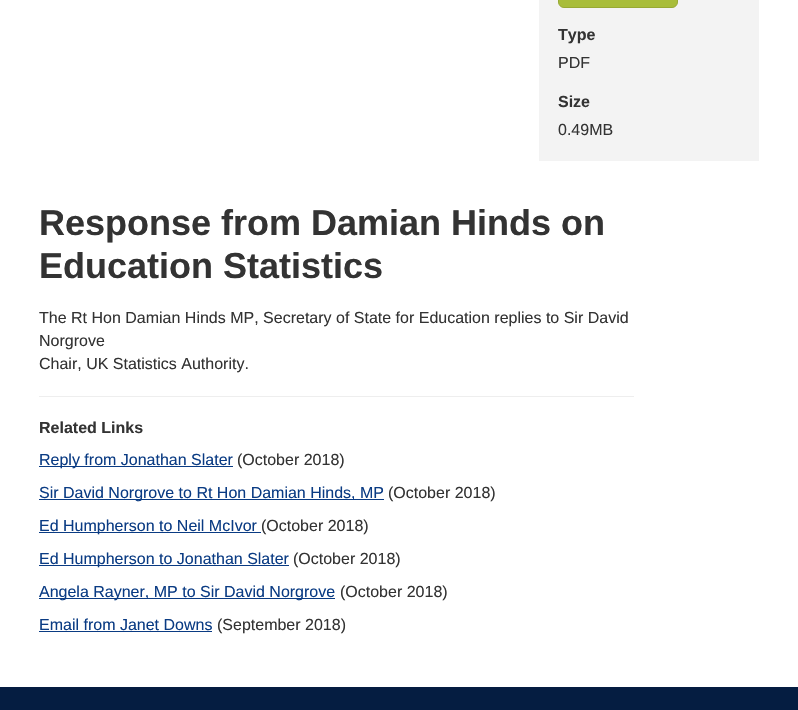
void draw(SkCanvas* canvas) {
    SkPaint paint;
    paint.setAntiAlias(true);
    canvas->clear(0xFF051D41);
    paint.setColor(0xFFFFFFFF);
    canvas->drawRect(SkRect::MakeXYWH(0, 0, 798, 687), paint);
    paint.setColor(0xFFF3F3F3);
    canvas->drawRect(SkRect::MakeXYWH(539, 0, 220, 161), paint);
    paint.setColor(0xFFA8BD3A);
    canvas->drawRoundRect(SkRect::MakeXYWH(558.5f, -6.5f, 119, 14), 5.5f, 5.5f, paint);
    paint.setStyle(SkPaint::kStroke_Style);
    paint.setStrokeWidth(1);
    paint.setColor(0xFF97A934);
    canvas->drawRoundRect(SkRect::MakeXYWH(558.5f, -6.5f, 119, 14), 5.5f, 5.5f, paint);
    SkFont font1(fontMgr->matchFamilyStyle("Liberation Sans", SkFontStyle::Bold()), 16);
    font1.setSubpixel(true);
    paint.setStyle(SkPaint::kFill_Style);
    paint.setColor(0xFF333333);
    canvas->drawString("Type", 558, 40, font1, paint);
    SkFont font2(fontMgr->matchFamilyStyle("Liberation Sans", SkFontStyle::Normal()), 16);
    font2.setSubpixel(true);
    canvas->drawString("PDF", 558, 68, font2, paint);
    canvas->drawString("Size", 558, 107, font1, paint);
    canvas->drawString("0.49MB", 558, 135, font2, paint);
    SkFont font3(fontMgr->matchFamilyStyle("Liberation Sans", SkFontStyle::Bold()), 36);
    font3.setSubpixel(true);
    canvas->drawString("Response from Damian Hinds on", 39, 235, font3, paint);
    canvas->drawString("Education Statistics", 39, 278, font3, paint);
    canvas->drawString("The Rt Hon Damian Hinds MP, Secretary of State for Education replies to Sir David", 39, 323, font2, paint);
    canvas->drawString("Norgrove", 39, 346, font2, paint);
    canvas->drawString("Chair, UK Statistics Authority.", 39, 369, font2, paint);
    paint.setColor(0xFFEEEEEE);
    canvas->drawRect(SkRect::MakeXYWH(39, 396, 595, 1), paint);
    paint.setColor(0xFF333333);
    canvas->drawString("Related Links", 39, 433, font1, paint);
    paint.setColor(0xFF0A3B83);
    canvas->drawRect(SkRect::MakeXYWH(39, 466, 194, 1), paint);
    canvas->drawString("Reply from Jonathan Slater", 39, 465, font2, paint);
    paint.setColor(0xFF333333);
    canvas->drawString("(October 2018)", 237, 465, font2, paint);
    paint.setColor(0xFF0A3B83);
    canvas->drawRect(SkRect::MakeXYWH(39, 499, 345, 1), paint);
    canvas->drawString("Sir David Norgrove to Rt Hon Damian Hinds, MP", 39, 498, font2, paint);
    paint.setColor(0xFF333333);
    canvas->drawString("(October 2018)", 388, 498, font2, paint);
    paint.setColor(0xFF0A3B83);
    canvas->drawRect(SkRect::MakeXYWH(39, 532, 222, 1), paint);
    canvas->drawString("Ed Humpherson to Neil McIvor", 39, 531, font2, paint);
    paint.setColor(0xFF333333);
    canvas->drawString("(October 2018)", 261, 531, font2, paint);
    paint.setColor(0xFF0A3B83);
    canvas->drawRect(SkRect::MakeXYWH(39, 565, 250, 1), paint);
    canvas->drawString("Ed Humpherson to Jonathan Slater", 39, 564, font2, paint);
    paint.setColor(0xFF333333);
    canvas->drawString("(October 2018)", 293, 564, font2, paint);
    paint.setColor(0xFF0A3B83);
    canvas->drawRect(SkRect::MakeXYWH(39, 598, 296, 1), paint);
    canvas->drawString("Angela Rayner, MP to Sir David Norgrove", 39, 597, font2, paint);
    paint.setColor(0xFF333333);
    canvas->drawString("(October 2018)", 340, 597, font2, paint);
    paint.setColor(0xFF0A3B83);
    canvas->drawString("Email from Janet Downs", 39, 630, font2, paint);
    canvas->drawRect(SkRect::MakeXYWH(39, 631, 173, 1), paint);
    paint.setColor(0xFF333333);
    canvas->drawString("(September 2018)", 217, 630, font2, paint);
}
